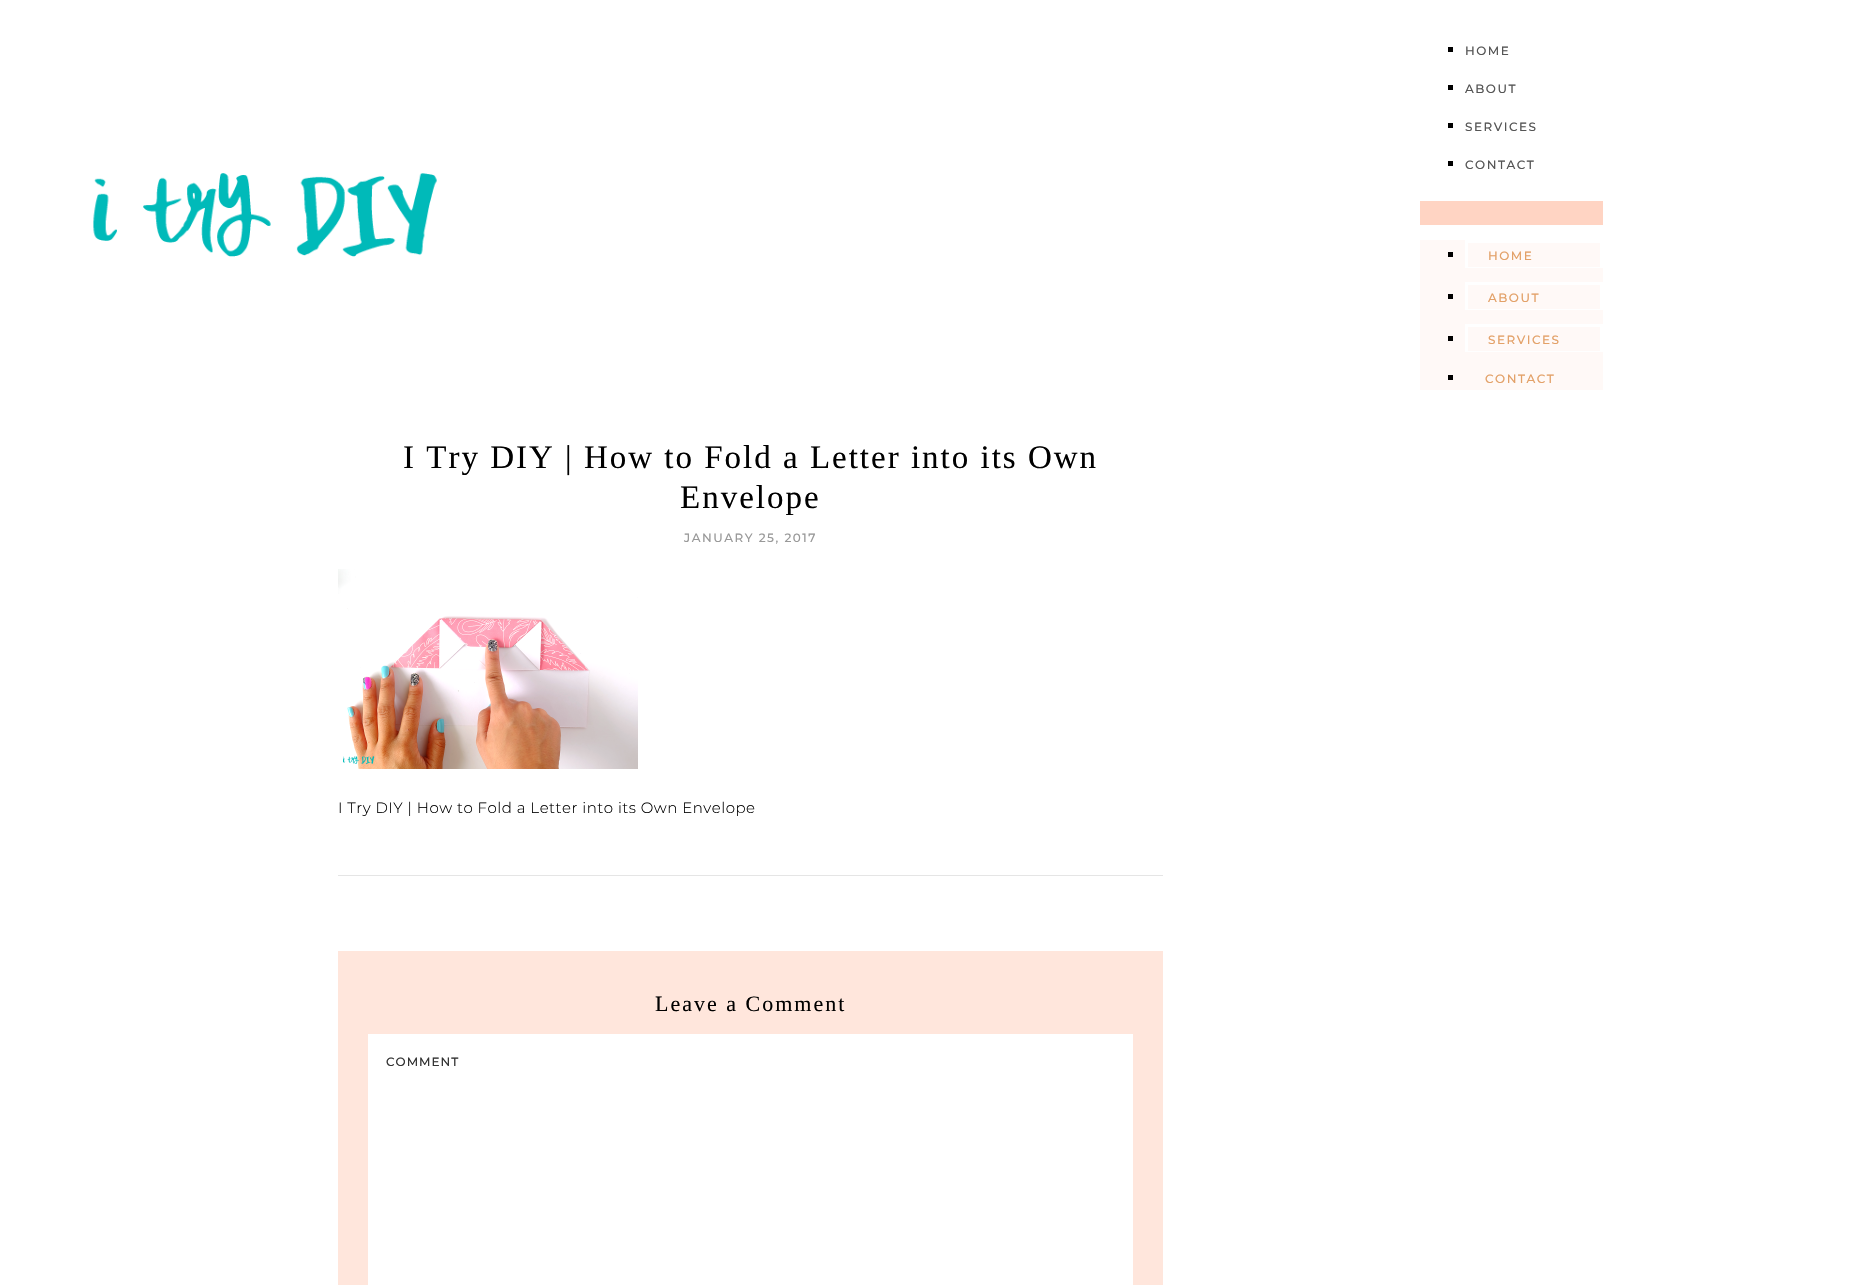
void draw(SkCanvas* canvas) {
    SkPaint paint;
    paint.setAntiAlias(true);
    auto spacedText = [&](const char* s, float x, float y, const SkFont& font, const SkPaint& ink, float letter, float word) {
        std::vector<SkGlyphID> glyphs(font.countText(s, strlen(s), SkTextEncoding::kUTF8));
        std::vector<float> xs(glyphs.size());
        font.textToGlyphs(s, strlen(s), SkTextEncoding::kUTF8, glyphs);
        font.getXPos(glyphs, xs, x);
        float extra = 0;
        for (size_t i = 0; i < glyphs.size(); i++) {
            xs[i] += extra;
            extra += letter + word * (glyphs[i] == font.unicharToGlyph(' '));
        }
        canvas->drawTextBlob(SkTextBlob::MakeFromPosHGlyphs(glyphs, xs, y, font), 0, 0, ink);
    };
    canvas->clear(0xFFFFFFFF);
    canvas->drawImageRect(SkImages::DeferredFromEncodedData(SkData::MakeFromFileName("img1.png")), SkRect::MakeXYWH(93, 173, 344, 84), SkSamplingOptions());
    paint.setColor(0xFF000000);
    canvas->drawRect(SkRect::MakeXYWH(1448, 47, 5, 5), paint);
    SkFont font1(fontMgr->matchFamilyStyle("Montserrat", SkFontStyle(500, SkFontStyle::kNormal_Width, SkFontStyle::kUpright_Slant)), 12);
    font1.setSubpixel(true);
    paint.setColor(0xFF555555);
    spacedText("HOME", 1465, 55, font1, paint, 1.5f, 0);
    paint.setColor(0xFF000000);
    canvas->drawRect(SkRect::MakeXYWH(1448, 85, 5, 5), paint);
    paint.setColor(0xFF555555);
    spacedText("ABOUT", 1465, 93, font1, paint, 1.5f, 0);
    paint.setColor(0xFF000000);
    canvas->drawRect(SkRect::MakeXYWH(1448, 123, 5, 5), paint);
    paint.setColor(0xFF555555);
    spacedText("SERVICES", 1465, 131, font1, paint, 1.5f, 0);
    paint.setColor(0xFF000000);
    canvas->drawRect(SkRect::MakeXYWH(1448, 161, 5, 5), paint);
    paint.setColor(0xFF555555);
    spacedText("CONTACT", 1465, 169, font1, paint, 1.5f, 0);
    paint.setColor(0xFFFFD4C3);
    canvas->drawRect(SkRect::MakeXYWH(1420, 201, 183, 24), paint);
    paint.setColor(0xFFFFF9F7);
    canvas->drawRect(SkRect::MakeXYWH(1420, 240, 183, 150), paint);
    paint.setColor(0xFFFFFFFF);
    canvas->drawRect(SkRect::MakeXYWH(1465, 240, 138, 3), paint);
    canvas->drawRect(SkRect::MakeXYWH(1600, 240, 3, 28), paint);
    canvas->drawRect(SkRect::MakeXYWH(1465, 267, 138, 1), paint);
    canvas->drawRect(SkRect::MakeXYWH(1465, 240, 3, 28), paint);
    paint.setColor(0xFF000000);
    canvas->drawRect(SkRect::MakeXYWH(1448, 252, 5, 5), paint);
    paint.setColor(0xFFE3A168);
    spacedText("HOME", 1488, 260, font1, paint, 1.5f, 0);
    paint.setColor(0xFFFFFFFF);
    canvas->drawRect(SkRect::MakeXYWH(1465, 282, 138, 3), paint);
    canvas->drawRect(SkRect::MakeXYWH(1600, 282, 3, 28), paint);
    canvas->drawRect(SkRect::MakeXYWH(1465, 309, 138, 1), paint);
    canvas->drawRect(SkRect::MakeXYWH(1465, 282, 3, 28), paint);
    paint.setColor(0xFF000000);
    canvas->drawRect(SkRect::MakeXYWH(1448, 294, 5, 5), paint);
    paint.setColor(0xFFE3A168);
    spacedText("ABOUT", 1488, 302, font1, paint, 1.5f, 0);
    paint.setColor(0xFFFFFFFF);
    canvas->drawRect(SkRect::MakeXYWH(1465, 324, 138, 3), paint);
    canvas->drawRect(SkRect::MakeXYWH(1600, 324, 3, 28), paint);
    canvas->drawRect(SkRect::MakeXYWH(1465, 351, 138, 1), paint);
    canvas->drawRect(SkRect::MakeXYWH(1465, 324, 3, 28), paint);
    paint.setColor(0xFF000000);
    canvas->drawRect(SkRect::MakeXYWH(1448, 336, 5, 5), paint);
    paint.setColor(0xFFE3A168);
    spacedText("SERVICES", 1488, 344, font1, paint, 1.5f, 0);
    paint.setColor(0xFF000000);
    canvas->drawRect(SkRect::MakeXYWH(1448, 375, 5, 5), paint);
    paint.setColor(0xFFE3A168);
    spacedText("CONTACT", 1485, 383, font1, paint, 1.5f, 0);
    SkFont font2(fontMgr->matchFamilyStyle("Liberation Serif", SkFontStyle::Normal()), 33);
    font2.setSubpixel(true);
    paint.setColor(0xFF000000);
    spacedText("I Try DIY | How to Fold a Letter into its Own", 403, 468, font2, paint, 2, 0);
    spacedText("Envelope", 680, 508, font2, paint, 2, 0);
    paint.setColor(0xFF999999);
    spacedText("JANUARY 25, 2017", 684, 542, font1, paint, 1.5f, 0);
    paint.setColor(0xFFE5E5E5);
    canvas->drawRect(SkRect::MakeXYWH(338, 875, 825, 1), paint);
    canvas->drawImageRect(SkImages::DeferredFromEncodedData(SkData::MakeFromFileName("img2.png")), SkRect::MakeXYWH(338, 569, 300, 200), SkSamplingOptions());
    SkFont font3(fontMgr->matchFamilyStyle("Montserrat", SkFontStyle(300, SkFontStyle::kNormal_Width, SkFontStyle::kUpright_Slant)), 15);
    font3.setSubpixel(true);
    paint.setColor(0xFF000000);
    spacedText("I Try DIY | How to Fold a Letter into its Own Envelope", 338, 813, font3, paint, 0.5f, 0);
    paint.setColor(0xFFFFE6DC);
    canvas->drawRect(SkRect::MakeXYWH(338, 951, 825, 334), paint);
    SkFont font4(fontMgr->matchFamilyStyle("Liberation Serif", SkFontStyle::Normal()), 22);
    font4.setSubpixel(true);
    paint.setColor(0xFF000000);
    spacedText("Leave a Comment", 655, 1011, font4, paint, 2, 0);
    paint.setColor(0xFFFFFFFF);
    canvas->drawRect(SkRect::MakeXYWH(368, 1034, 765, 251), paint);
    paint.setColor(0xFF333333);
    spacedText("COMMENT", 386, 1066, font1, paint, 1, 0);
}
